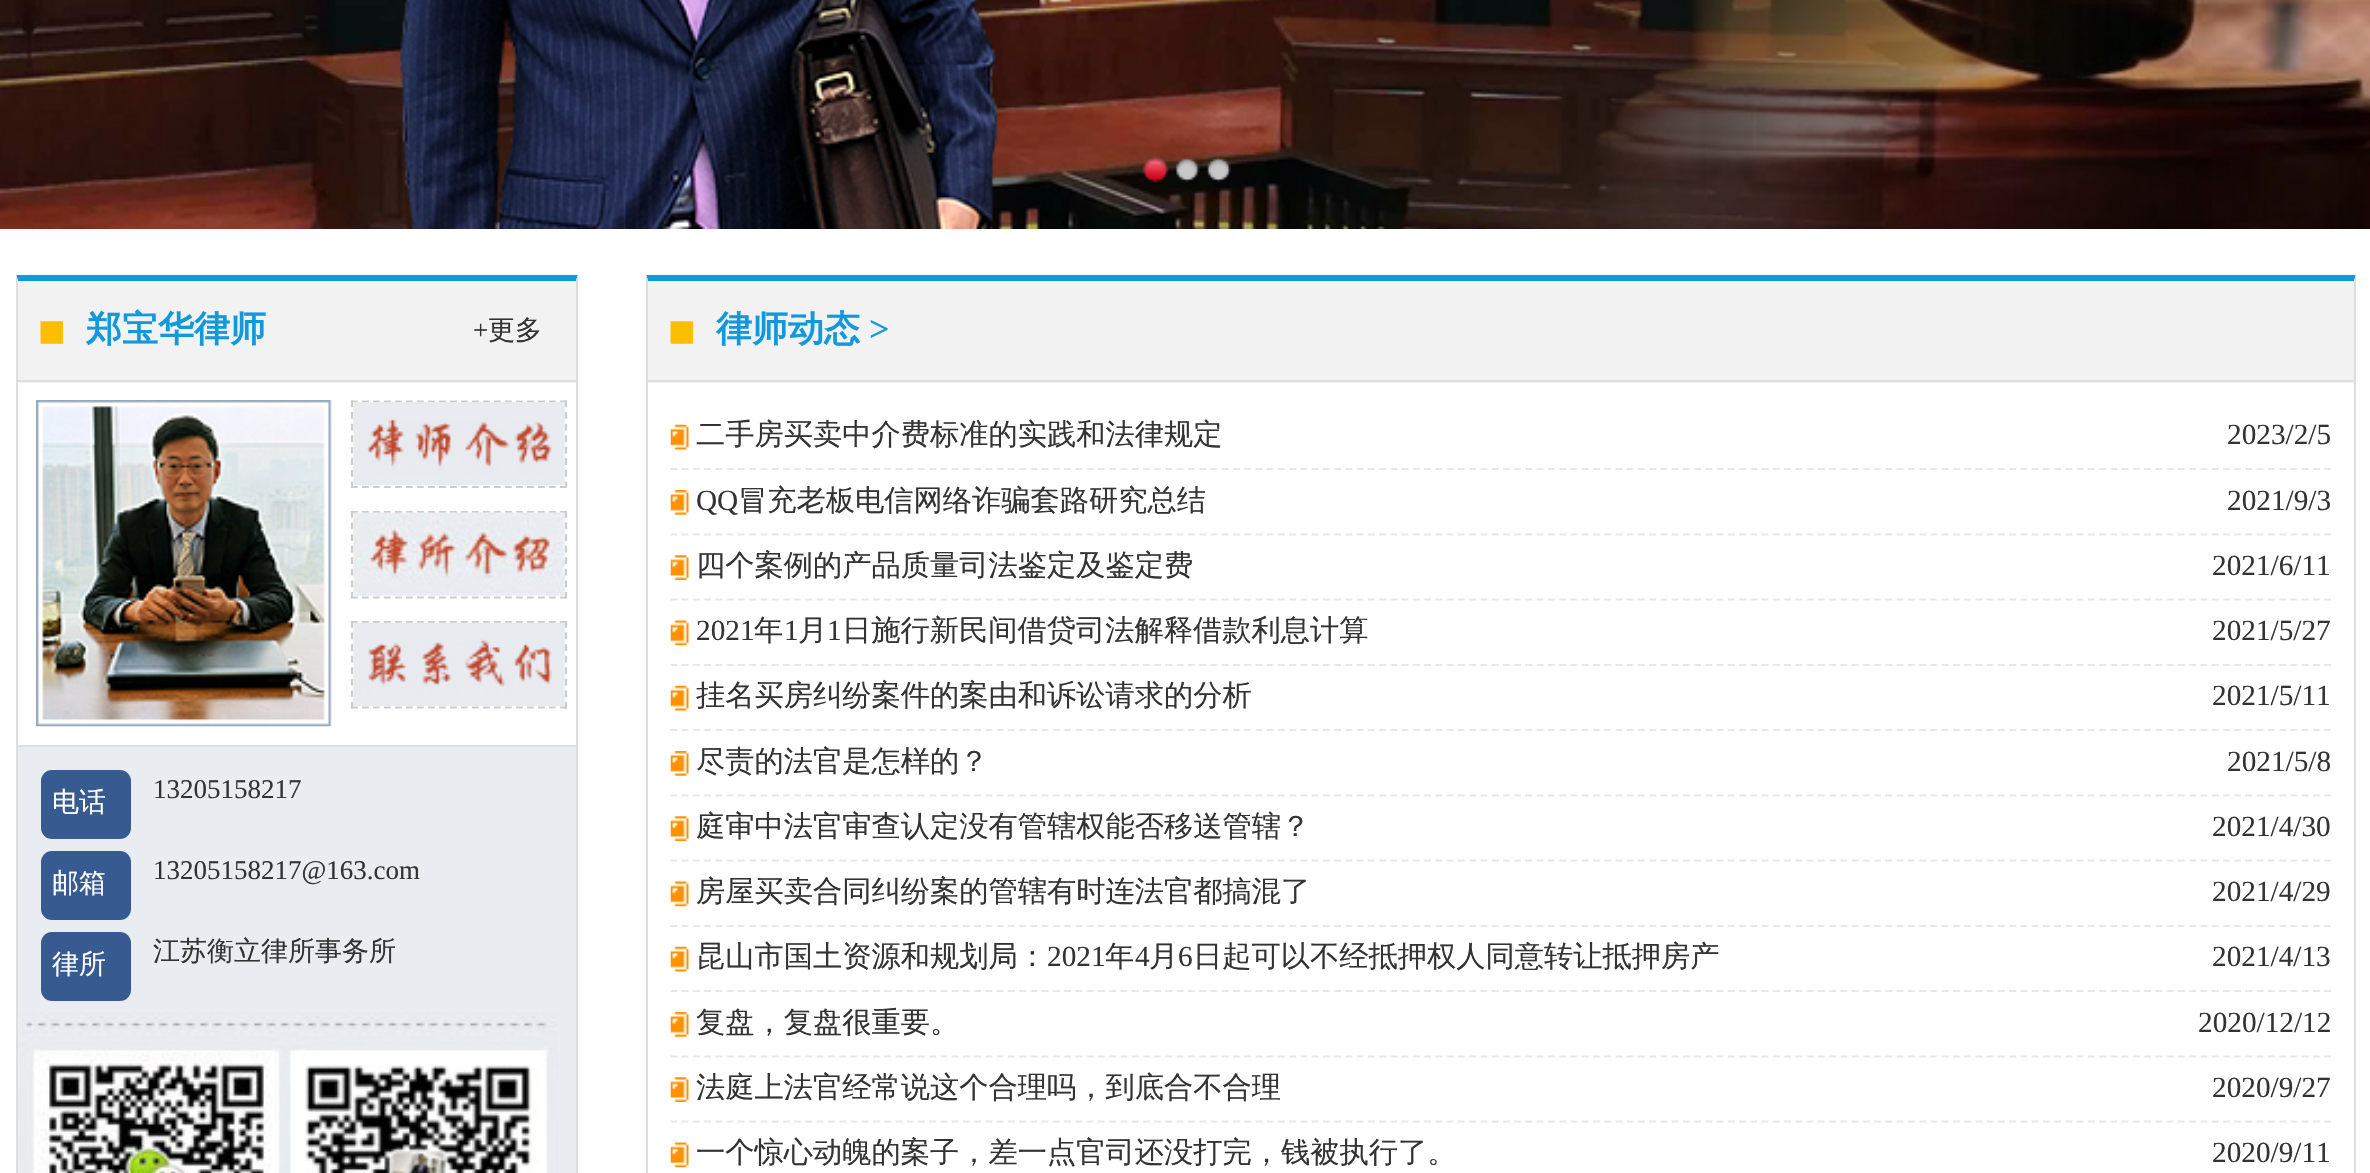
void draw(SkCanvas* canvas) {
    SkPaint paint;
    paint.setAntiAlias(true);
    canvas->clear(0xFFFFFFFF);
    canvas->drawImageRect(SkImages::DeferredFromEncodedData(SkData::MakeFromFileName("img1.png")), SkRect::MakeXYWH(0, 0, 2370, 229), SkSamplingOptions());
    canvas->drawImageRect(SkImages::DeferredFromEncodedData(SkData::MakeFromFileName("img2.png")), SkRect::MakeXYWH(1142, 156, 27, 27), SkSamplingOptions());
    canvas->drawImageRect(SkImages::DeferredFromEncodedData(SkData::MakeFromFileName("img3.png")), SkRect::MakeXYWH(1175, 157, 25, 25), SkSamplingOptions());
    canvas->drawImageRect(SkImages::DeferredFromEncodedData(SkData::MakeFromFileName("img4.png")), SkRect::MakeXYWH(1206, 157, 26, 26), SkSamplingOptions());
    canvas->save();
    canvas->clipRect(SkRect::MakeXYWH(16, 275, 562, 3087));
    paint.setColor(0xFF1299DB);
    canvas->drawPath(SkPathBuilder().moveTo(16, 274).lineTo(578, 274).lineTo(576, 281).lineTo(18, 281).close().detach(), paint);
    canvas->restore();
    paint.setColor(0xFFDEDEDE);
    canvas->drawPath(SkPathBuilder().moveTo(578, 274).lineTo(578, 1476).lineTo(576, 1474).lineTo(576, 281).close().detach(), paint);
    canvas->drawPath(SkPathBuilder().moveTo(16, 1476).lineTo(16, 274).lineTo(18, 281).lineTo(18, 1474).close().detach(), paint);
    paint.setColor(0xFFF2F2F2);
    canvas->drawRect(SkRect::MakeXYWH(18, 281, 558, 102), paint);
    paint.setColor(0xFFDEDEDE);
    canvas->drawRect(SkRect::MakeXYWH(18, 380, 558, 2), paint);
    canvas->drawImageRect(SkImages::DeferredFromEncodedData(SkData::MakeFromFileName("img5.png")), SkRect::MakeXYWH(40, 321, 23, 23), SkSamplingOptions());
    SkFont font1(fontMgr->matchFamilyStyle("WenQuanYi Zen Hei", SkFontStyle::Bold()), 36);
    font1.setSubpixel(true);
    paint.setColor(0xFF1299DB);
    canvas->drawString("郑宝华律师", 86, 341, font1, paint);
    SkFont font2(fontMgr->matchFamilyStyle("Liberation Serif", SkFontStyle::Normal()), 27);
    font2.setSubpixel(true);
    paint.setColor(0xFF333333);
    canvas->drawString("+", 473, 339, font2, paint);
    SkFont font3(fontMgr->matchFamilyStyle("WenQuanYi Zen Hei", SkFontStyle(500, SkFontStyle::kNormal_Width, SkFontStyle::kUpright_Slant)), 27);
    font3.setSubpixel(true);
    canvas->drawString("更多", 488, 339, font3, paint);
    canvas->drawImageRect(SkImages::DeferredFromEncodedData(SkData::MakeFromFileName("img6.png")), SkRect::MakeXYWH(36, 400, 296, 327), SkSamplingOptions());
    paint.setStyle(SkPaint::kStroke_Style);
    paint.setStrokeWidth(2.2f);
    paint.setColor(0xFFCCCCCC);
    paint.setPathEffect(SkDashPathEffect::Make({{6.75f, 4.25f}}, 0));
    canvas->drawPath(SkPathBuilder().moveTo(351, 401.5f).lineTo(567, 401.5f).detach(), paint);
    paint.setPathEffect(nullptr);
    paint.setPathEffect(SkDashPathEffect::Make({{6.75f, 4.82f}}, 0));
    canvas->drawPath(SkPathBuilder().moveTo(566, 400.5f).lineTo(566, 488).detach(), paint);
    paint.setPathEffect(nullptr);
    paint.setPathEffect(SkDashPathEffect::Make({{6.75f, 4.25f}}, 0));
    canvas->drawPath(SkPathBuilder().moveTo(351, 487).lineTo(567, 487).detach(), paint);
    paint.setPathEffect(nullptr);
    paint.setPathEffect(SkDashPathEffect::Make({{6.75f, 4.82f}}, 0));
    canvas->drawPath(SkPathBuilder().moveTo(352, 400.5f).lineTo(352, 488).detach(), paint);
    paint.setPathEffect(nullptr);
    canvas->drawImageRect(SkImages::DeferredFromEncodedData(SkData::MakeFromFileName("img7.png")), SkRect::MakeXYWH(353, 402, 212, 84), SkSamplingOptions());
    paint.setPathEffect(SkDashPathEffect::Make({{6.75f, 4.25f}}, 0));
    canvas->drawPath(SkPathBuilder().moveTo(351, 512).lineTo(567, 512).detach(), paint);
    paint.setPathEffect(nullptr);
    paint.setPathEffect(SkDashPathEffect::Make({{6.75f, 4.82f}}, 0));
    canvas->drawPath(SkPathBuilder().moveTo(566, 511).lineTo(566, 598.5f).detach(), paint);
    paint.setPathEffect(nullptr);
    paint.setPathEffect(SkDashPathEffect::Make({{6.75f, 4.25f}}, 0));
    canvas->drawPath(SkPathBuilder().moveTo(351, 597.5f).lineTo(567, 597.5f).detach(), paint);
    paint.setPathEffect(nullptr);
    paint.setPathEffect(SkDashPathEffect::Make({{6.75f, 4.82f}}, 0));
    canvas->drawPath(SkPathBuilder().moveTo(352, 511).lineTo(352, 598.5f).detach(), paint);
    paint.setPathEffect(nullptr);
    canvas->drawImageRect(SkImages::DeferredFromEncodedData(SkData::MakeFromFileName("img8.png")), SkRect::MakeXYWH(353, 512, 212, 84), SkSamplingOptions());
    paint.setPathEffect(SkDashPathEffect::Make({{6.75f, 4.25f}}, 0));
    canvas->drawPath(SkPathBuilder().moveTo(351, 622).lineTo(567, 622).detach(), paint);
    paint.setPathEffect(nullptr);
    paint.setPathEffect(SkDashPathEffect::Make({{6.75f, 4.82f}}, 0));
    canvas->drawPath(SkPathBuilder().moveTo(566, 621).lineTo(566, 709).detach(), paint);
    paint.setPathEffect(nullptr);
    paint.setPathEffect(SkDashPathEffect::Make({{6.75f, 4.25f}}, 0));
    canvas->drawPath(SkPathBuilder().moveTo(351, 707.5f).lineTo(567, 707.5f).detach(), paint);
    paint.setPathEffect(nullptr);
    paint.setPathEffect(SkDashPathEffect::Make({{6.75f, 4.82f}}, 0));
    canvas->drawPath(SkPathBuilder().moveTo(352, 621).lineTo(352, 709).detach(), paint);
    paint.setPathEffect(nullptr);
    canvas->drawImageRect(SkImages::DeferredFromEncodedData(SkData::MakeFromFileName("img9.png")), SkRect::MakeXYWH(353, 622, 212, 84), SkSamplingOptions());
    paint.setStyle(SkPaint::kFill_Style);
    paint.setColor(0xFFE9EDF2);
    canvas->drawRect(SkRect::MakeXYWH(18, 747, 558, 426), paint);
    paint.setColor(0xFFDEDEDE);
    canvas->drawRect(SkRect::MakeXYWH(18, 745, 558, 2), paint);
    paint.setColor(0xFF375A91);
    canvas->drawRoundRect(SkRect::MakeXYWH(41, 770, 90, 69), 11, 11, paint);
    paint.setColor(0xFFFFFFFF);
    canvas->drawString("电话", 52, 811, font3, paint);
    paint.setColor(0xFF333333);
    canvas->drawString("13205158217", 153, 798, font2, paint);
    paint.setColor(0xFF375A91);
    canvas->drawRoundRect(SkRect::MakeXYWH(41, 851, 90, 69), 11, 11, paint);
    paint.setColor(0xFFFFFFFF);
    canvas->drawString("邮箱", 52, 892, font3, paint);
    paint.setColor(0xFF333333);
    canvas->drawString("13205158217@163.com", 153, 879, font2, paint);
    paint.setColor(0xFF375A91);
    canvas->drawRoundRect(SkRect::MakeXYWH(41, 932, 90, 69), 11, 11, paint);
    paint.setColor(0xFFFFFFFF);
    canvas->drawString("律所", 52, 973, font3, paint);
    paint.setColor(0xFF333333);
    canvas->drawString("江苏衡立律所事务所", 153, 960, font3, paint);
    canvas->drawImageRect(SkImages::DeferredFromEncodedData(SkData::MakeFromFileName("img10.png")), SkRect::MakeXYWH(18, 1012, 540, 161), SkSamplingOptions());
    canvas->save();
    canvas->clipRect(SkRect::MakeXYWH(16, 275, 2340, 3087));
    paint.setColor(0xFF1299DB);
    canvas->drawPath(SkPathBuilder().moveTo(646, 274).lineTo(2356, 274).lineTo(2354, 281).lineTo(648, 281).close().detach(), paint);
    canvas->restore();
    paint.setColor(0xFFDEDEDE);
    canvas->drawPath(SkPathBuilder().moveTo(2356, 274).lineTo(2356, 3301).lineTo(2354, 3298).lineTo(2354, 281).close().detach(), paint);
    canvas->drawPath(SkPathBuilder().moveTo(646, 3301).lineTo(646, 274).lineTo(648, 281).lineTo(648, 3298).close().detach(), paint);
    paint.setColor(0xFFF2F2F2);
    canvas->drawRect(SkRect::MakeXYWH(648, 281, 1706, 102), paint);
    paint.setColor(0xFFDEDEDE);
    canvas->drawRect(SkRect::MakeXYWH(648, 380, 1706, 2), paint);
    canvas->drawImageRect(SkImages::DeferredFromEncodedData(SkData::MakeFromFileName("img11.png")), SkRect::MakeXYWH(670, 321, 23, 23), SkSamplingOptions());
    paint.setColor(0xFF1299DB);
    canvas->drawString("律师动态", 716, 341, font1, paint);
    SkFont font4(fontMgr->matchFamilyStyle("Liberation Serif", SkFontStyle::Bold()), 36);
    font4.setSubpixel(true);
    canvas->drawString(">", 869, 341, font4, paint);
    paint.setStyle(SkPaint::kStroke_Style);
    paint.setColor(0xFFE7E7E7);
    paint.setPathEffect(SkDashPathEffect::Make({{6.75f, 4.5f}}, 0));
    canvas->drawPath(SkPathBuilder().moveTo(670.5f, 469).lineTo(2331, 469).detach(), paint);
    paint.setPathEffect(nullptr);
    canvas->drawImageRect(SkImages::DeferredFromEncodedData(SkData::MakeFromFileName("img12.png")), SkRect::MakeXYWH(670, 424, 19, 26), SkSamplingOptions());
    SkFont font5(fontMgr->matchFamilyStyle("WenQuanYi Zen Hei", SkFontStyle(500, SkFontStyle::kNormal_Width, SkFontStyle::kUpright_Slant)), 29.25f);
    font5.setSubpixel(true);
    paint.setStyle(SkPaint::kFill_Style);
    paint.setColor(0xFF333333);
    canvas->drawString("二手房买卖中介费标准的实践和法律规定", 696, 444, font5, paint);
    SkFont font6(fontMgr->matchFamilyStyle("Liberation Serif", SkFontStyle::Normal()), 29.25f);
    font6.setSubpixel(true);
    canvas->drawString("2023/2/5", 2227, 444, font6, paint);
    paint.setStyle(SkPaint::kStroke_Style);
    paint.setColor(0xFFE7E7E7);
    paint.setPathEffect(SkDashPathEffect::Make({{6.75f, 4.5f}}, 0));
    canvas->drawPath(SkPathBuilder().moveTo(670.5f, 534.5f).lineTo(2331, 534.5f).detach(), paint);
    paint.setPathEffect(nullptr);
    canvas->drawImageRect(SkImages::DeferredFromEncodedData(SkData::MakeFromFileName("img13.png")), SkRect::MakeXYWH(670, 490, 19, 25), SkSamplingOptions());
    paint.setStyle(SkPaint::kFill_Style);
    paint.setColor(0xFF333333);
    canvas->drawString("QQ", 696, 510, font6, paint);
    canvas->drawString("冒充老板电信网络诈骗套路研究总结", 738, 510, font5, paint);
    canvas->drawString("2021/9/3", 2227, 510, font6, paint);
    paint.setStyle(SkPaint::kStroke_Style);
    paint.setColor(0xFFE7E7E7);
    paint.setPathEffect(SkDashPathEffect::Make({{6.75f, 4.5f}}, 0));
    canvas->drawPath(SkPathBuilder().moveTo(670.5f, 599.5f).lineTo(2331, 599.5f).detach(), paint);
    paint.setPathEffect(nullptr);
    canvas->drawImageRect(SkImages::DeferredFromEncodedData(SkData::MakeFromFileName("img14.png")), SkRect::MakeXYWH(670, 555, 19, 25), SkSamplingOptions());
    paint.setStyle(SkPaint::kFill_Style);
    paint.setColor(0xFF333333);
    canvas->drawString("四个案例的产品质量司法鉴定及鉴定费", 696, 575, font5, paint);
    canvas->drawString("2021/6/11", 2212, 575, font6, paint);
    paint.setStyle(SkPaint::kStroke_Style);
    paint.setColor(0xFFE7E7E7);
    paint.setPathEffect(SkDashPathEffect::Make({{6.75f, 4.5f}}, 0));
    canvas->drawPath(SkPathBuilder().moveTo(670.5f, 665).lineTo(2331, 665).detach(), paint);
    paint.setPathEffect(nullptr);
    canvas->drawImageRect(SkImages::DeferredFromEncodedData(SkData::MakeFromFileName("img15.png")), SkRect::MakeXYWH(670, 620, 19, 26), SkSamplingOptions());
    paint.setStyle(SkPaint::kFill_Style);
    paint.setColor(0xFF333333);
    canvas->drawString("2021", 696, 640, font6, paint);
    canvas->drawString("年", 754, 640, font5, paint);
    canvas->drawString("1", 784, 640, font6, paint);
    canvas->drawString("月", 798, 640, font5, paint);
    canvas->drawString("1", 827, 640, font6, paint);
    canvas->drawString("日施行新民间借贷司法解释借款利息计算", 842, 640, font5, paint);
    canvas->drawString("2021/5/27", 2212, 640, font6, paint);
    paint.setStyle(SkPaint::kStroke_Style);
    paint.setColor(0xFFE7E7E7);
    paint.setPathEffect(SkDashPathEffect::Make({{6.75f, 4.5f}}, 0));
    canvas->drawPath(SkPathBuilder().moveTo(670.5f, 730).lineTo(2331, 730).detach(), paint);
    paint.setPathEffect(nullptr);
    canvas->drawImageRect(SkImages::DeferredFromEncodedData(SkData::MakeFromFileName("img12.png")), SkRect::MakeXYWH(670, 685, 19, 26), SkSamplingOptions());
    paint.setStyle(SkPaint::kFill_Style);
    paint.setColor(0xFF333333);
    canvas->drawString("挂名买房纠纷案件的案由和诉讼请求的分析", 696, 705, font5, paint);
    canvas->drawString("2021/5/11", 2212, 705, font6, paint);
    paint.setStyle(SkPaint::kStroke_Style);
    paint.setColor(0xFFE7E7E7);
    paint.setPathEffect(SkDashPathEffect::Make({{6.75f, 4.5f}}, 0));
    canvas->drawPath(SkPathBuilder().moveTo(670.5f, 795.5f).lineTo(2331, 795.5f).detach(), paint);
    paint.setPathEffect(nullptr);
    canvas->drawImageRect(SkImages::DeferredFromEncodedData(SkData::MakeFromFileName("img13.png")), SkRect::MakeXYWH(670, 751, 19, 25), SkSamplingOptions());
    paint.setStyle(SkPaint::kFill_Style);
    paint.setColor(0xFF333333);
    canvas->drawString("尽责的法官是怎样的？", 696, 771, font5, paint);
    canvas->drawString("2021/5/8", 2227, 771, font6, paint);
    paint.setStyle(SkPaint::kStroke_Style);
    paint.setColor(0xFFE7E7E7);
    paint.setPathEffect(SkDashPathEffect::Make({{6.75f, 4.5f}}, 0));
    canvas->drawPath(SkPathBuilder().moveTo(670.5f, 860.5f).lineTo(2331, 860.5f).detach(), paint);
    paint.setPathEffect(nullptr);
    canvas->drawImageRect(SkImages::DeferredFromEncodedData(SkData::MakeFromFileName("img14.png")), SkRect::MakeXYWH(670, 816, 19, 25), SkSamplingOptions());
    paint.setStyle(SkPaint::kFill_Style);
    paint.setColor(0xFF333333);
    canvas->drawString("庭审中法官审查认定没有管辖权能否移送管辖？", 696, 836, font5, paint);
    canvas->drawString("2021/4/30", 2212, 836, font6, paint);
    paint.setStyle(SkPaint::kStroke_Style);
    paint.setColor(0xFFE7E7E7);
    paint.setPathEffect(SkDashPathEffect::Make({{6.75f, 4.5f}}, 0));
    canvas->drawPath(SkPathBuilder().moveTo(670.5f, 926).lineTo(2331, 926).detach(), paint);
    paint.setPathEffect(nullptr);
    canvas->drawImageRect(SkImages::DeferredFromEncodedData(SkData::MakeFromFileName("img15.png")), SkRect::MakeXYWH(670, 881, 19, 26), SkSamplingOptions());
    paint.setStyle(SkPaint::kFill_Style);
    paint.setColor(0xFF333333);
    canvas->drawString("房屋买卖合同纠纷案的管辖有时连法官都搞混了", 696, 901, font5, paint);
    canvas->drawString("2021/4/29", 2212, 901, font6, paint);
    paint.setStyle(SkPaint::kStroke_Style);
    paint.setColor(0xFFE7E7E7);
    paint.setPathEffect(SkDashPathEffect::Make({{6.75f, 4.5f}}, 0));
    canvas->drawPath(SkPathBuilder().moveTo(670.5f, 991).lineTo(2331, 991).detach(), paint);
    paint.setPathEffect(nullptr);
    canvas->drawImageRect(SkImages::DeferredFromEncodedData(SkData::MakeFromFileName("img12.png")), SkRect::MakeXYWH(670, 946, 19, 26), SkSamplingOptions());
    paint.setStyle(SkPaint::kFill_Style);
    paint.setColor(0xFF333333);
    canvas->drawString("昆山市国土资源和规划局：", 696, 966, font5, paint);
    canvas->drawString("2021", 1047, 966, font6, paint);
    canvas->drawString("年", 1105, 966, font5, paint);
    canvas->drawString("4", 1135, 966, font6, paint);
    canvas->drawString("月", 1149, 966, font5, paint);
    canvas->drawString("6", 1178, 966, font6, paint);
    canvas->drawString("日起可以不经抵押权人同意转让抵押房产", 1193, 966, font5, paint);
    canvas->drawString("2021/4/13", 2212, 966, font6, paint);
    paint.setStyle(SkPaint::kStroke_Style);
    paint.setColor(0xFFE7E7E7);
    paint.setPathEffect(SkDashPathEffect::Make({{6.75f, 4.5f}}, 0));
    canvas->drawPath(SkPathBuilder().moveTo(670.5f, 1056.5f).lineTo(2331, 1056.5f).detach(), paint);
    paint.setPathEffect(nullptr);
    canvas->drawImageRect(SkImages::DeferredFromEncodedData(SkData::MakeFromFileName("img13.png")), SkRect::MakeXYWH(670, 1012, 19, 25), SkSamplingOptions());
    paint.setStyle(SkPaint::kFill_Style);
    paint.setColor(0xFF333333);
    canvas->drawString("复盘，复盘很重要。", 696, 1032, font5, paint);
    canvas->drawString("2020/12/12", 2198, 1032, font6, paint);
    paint.setStyle(SkPaint::kStroke_Style);
    paint.setColor(0xFFE7E7E7);
    paint.setPathEffect(SkDashPathEffect::Make({{6.75f, 4.5f}}, 0));
    canvas->drawPath(SkPathBuilder().moveTo(670.5f, 1121.5f).lineTo(2331, 1121.5f).detach(), paint);
    paint.setPathEffect(nullptr);
    canvas->drawImageRect(SkImages::DeferredFromEncodedData(SkData::MakeFromFileName("img14.png")), SkRect::MakeXYWH(670, 1077, 19, 25), SkSamplingOptions());
    paint.setStyle(SkPaint::kFill_Style);
    paint.setColor(0xFF333333);
    canvas->drawString("法庭上法官经常说这个合理吗，到底合不合理", 696, 1097, font5, paint);
    canvas->drawString("2020/9/27", 2212, 1097, font6, paint);
    canvas->drawImageRect(SkImages::DeferredFromEncodedData(SkData::MakeFromFileName("img15.png")), SkRect::MakeXYWH(670, 1142, 19, 26), SkSamplingOptions());
    canvas->drawString("一个惊心动魄的案子，差一点官司还没打完，钱被执行了。", 696, 1162, font5, paint);
    canvas->drawString("2020/9/11", 2212, 1162, font6, paint);
}
